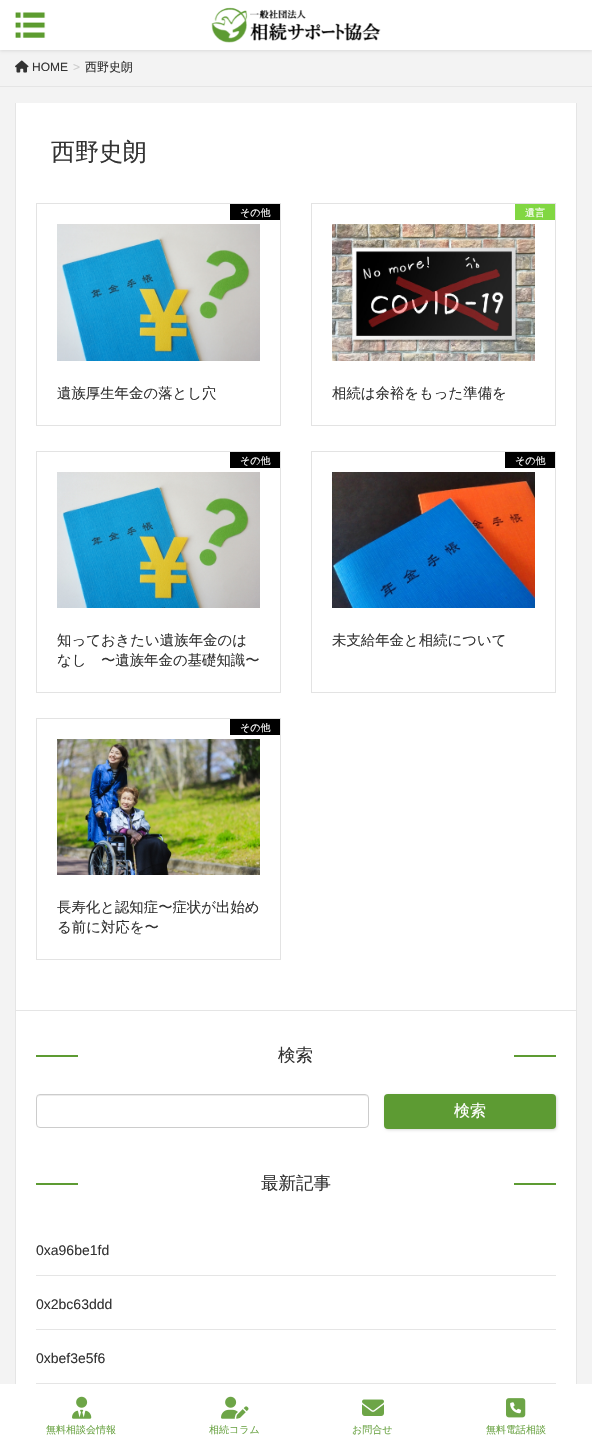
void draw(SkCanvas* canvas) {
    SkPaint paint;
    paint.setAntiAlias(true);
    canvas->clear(0xFFF3F3F3);
    paint.setColor(0x1A000000);
    paint.setMaskFilter(SkMaskFilter::MakeBlur(kNormal_SkBlurStyle, 1.5f));
    canvas->drawRect(SkRect::MakeXYWH(0, 1, 592, 50), paint);
    paint.setMaskFilter(nullptr);
    paint.setColor(0xFFFFFFFF);
    canvas->drawRect(SkRect::MakeXYWH(0, 0, 592, 50), paint);
    canvas->drawImageRect(SkImages::DeferredFromEncodedData(SkData::MakeFromFileName("img1.png")), SkRect::MakeXYWH(211, 7, 170, 36), SkSamplingOptions());
    canvas->drawImageRect(SkImages::DeferredFromEncodedData(SkData::MakeFromFileName("img2.png")), SkRect::MakeXYWH(15, 12, 31, 26), SkSamplingOptions());
    paint.setColor(0xFFE5E5E5);
    canvas->drawRect(SkRect::MakeXYWH(0, 86, 592, 1), paint);
    canvas->drawImageRect(SkImages::DeferredFromEncodedData(SkData::MakeFromFileName("img3.png")), SkRect::MakeXYWH(15, 60, 14, 13), SkSamplingOptions());
    SkFont font1(fontMgr->matchFamilyStyle("Liberation Sans", SkFontStyle::Normal()), 12);
    font1.setSubpixel(true);
    paint.setColor(0xFF333333);
    canvas->drawString("HOME", 32, 71, font1, paint);
    paint.setColor(0xFFCCCCCC);
    canvas->drawString(">", 73, 71, font1, paint);
    SkFont font2(fontMgr->matchFamilyStyle("WenQuanYi Zen Hei", SkFontStyle(500, SkFontStyle::kNormal_Width, SkFontStyle::kUpright_Slant)), 12);
    font2.setSubpixel(true);
    paint.setColor(0xFF333333);
    canvas->drawString("西野史朗", 85, 71, font2, paint);
    paint.setColor(0xFFFFFFFF);
    canvas->drawRect(SkRect::MakeXYWH(16, 103, 560, 907), paint);
    paint.setColor(0xFFE5E5E5);
    canvas->drawRect(SkRect::MakeXYWH(576, 103, 1, 1281), paint);
    canvas->drawRect(SkRect::MakeXYWH(15, 1010, 562, 1), paint);
    canvas->drawRect(SkRect::MakeXYWH(15, 103, 1, 1281), paint);
    SkFont font3(fontMgr->matchFamilyStyle("WenQuanYi Zen Hei", SkFontStyle(500, SkFontStyle::kNormal_Width, SkFontStyle::kUpright_Slant)), 24);
    font3.setSubpixel(true);
    paint.setColor(0xFF333333);
    canvas->drawString("西野史朗", 51, 160, font3, paint);
    paint.setStyle(SkPaint::kStroke_Style);
    paint.setStrokeWidth(1);
    paint.setColor(0xFFE3E3E3);
    canvas->drawRect(SkRect::MakeXYWH(36.5f, 203.5f, 244, 222), paint);
    paint.setStyle(SkPaint::kFill_Style);
    paint.setColor(0xFF000000);
    canvas->drawRect(SkRect::MakeXYWH(230, 204, 50, 16), paint);
    SkFont font4(fontMgr->matchFamilyStyle("WenQuanYi Zen Hei", SkFontStyle(500, SkFontStyle::kNormal_Width, SkFontStyle::kUpright_Slant)), 10);
    font4.setSubpixel(true);
    paint.setColor(0xFFFFFFFF);
    canvas->drawString("その他", 240, 216, font4, paint);
    SkFont font5(fontMgr->matchFamilyStyle("WenQuanYi Zen Hei", SkFontStyle(500, SkFontStyle::kNormal_Width, SkFontStyle::kUpright_Slant)), 14.4f);
    font5.setSubpixel(true);
    paint.setColor(0xFF333333);
    canvas->drawString("遺族厚生年金の落とし穴", 57, 398, font5, paint);
    canvas->drawImageRect(SkImages::DeferredFromEncodedData(SkData::MakeFromFileName("img4.png")), SkRect::MakeXYWH(57, 224, 203, 137), SkSamplingOptions());
    paint.setStyle(SkPaint::kStroke_Style);
    paint.setColor(0xFFE3E3E3);
    canvas->drawRect(SkRect::MakeXYWH(311.5f, 203.5f, 244, 222), paint);
    paint.setStyle(SkPaint::kFill_Style);
    paint.setColor(0xFF81D742);
    canvas->drawRect(SkRect::MakeXYWH(515, 204, 40, 16), paint);
    paint.setColor(0xFFFFFFFF);
    canvas->drawString("遺言", 525, 216, font4, paint);
    paint.setColor(0xFF333333);
    canvas->drawString("相続は余裕をもった準備を", 332, 398, font5, paint);
    canvas->drawImageRect(SkImages::DeferredFromEncodedData(SkData::MakeFromFileName("img5.png")), SkRect::MakeXYWH(332, 224, 203, 137), SkSamplingOptions());
    paint.setStyle(SkPaint::kStroke_Style);
    paint.setColor(0xFFE3E3E3);
    canvas->drawRect(SkRect::MakeXYWH(36.5f, 451.5f, 244, 241), paint);
    paint.setStyle(SkPaint::kFill_Style);
    paint.setColor(0xFF000000);
    canvas->drawRect(SkRect::MakeXYWH(230, 452, 50, 16), paint);
    paint.setColor(0xFFFFFFFF);
    canvas->drawString("その他", 240, 464, font4, paint);
    paint.setColor(0xFF333333);
    canvas->drawString("知っておきたい遺族年金のは", 57, 645, font5, paint);
    canvas->drawString("なし　〜遺族年金の基礎知識〜", 57, 665, font5, paint);
    canvas->drawImageRect(SkImages::DeferredFromEncodedData(SkData::MakeFromFileName("img6.png")), SkRect::MakeXYWH(57, 472, 203, 136), SkSamplingOptions());
    paint.setStyle(SkPaint::kStroke_Style);
    paint.setColor(0xFFE3E3E3);
    canvas->drawRect(SkRect::MakeXYWH(311.5f, 451.5f, 244, 241), paint);
    paint.setStyle(SkPaint::kFill_Style);
    paint.setColor(0xFF000000);
    canvas->drawRect(SkRect::MakeXYWH(505, 452, 50, 16), paint);
    paint.setColor(0xFFFFFFFF);
    canvas->drawString("その他", 515, 464, font4, paint);
    paint.setColor(0xFF333333);
    canvas->drawString("未支給年金と相続について", 332, 645, font5, paint);
    canvas->drawImageRect(SkImages::DeferredFromEncodedData(SkData::MakeFromFileName("img7.png")), SkRect::MakeXYWH(332, 472, 203, 136), SkSamplingOptions());
    paint.setStyle(SkPaint::kStroke_Style);
    paint.setColor(0xFFE3E3E3);
    canvas->drawRect(SkRect::MakeXYWH(36.5f, 718.5f, 244, 241), paint);
    paint.setStyle(SkPaint::kFill_Style);
    paint.setColor(0xFF000000);
    canvas->drawRect(SkRect::MakeXYWH(230, 719, 50, 16), paint);
    paint.setColor(0xFFFFFFFF);
    canvas->drawString("その他", 240, 731, font4, paint);
    paint.setColor(0xFF333333);
    canvas->drawString("長寿化と認知症〜症状が出始め", 57, 912, font5, paint);
    canvas->drawString("る前に対応を〜", 57, 932, font5, paint);
    canvas->drawImageRect(SkImages::DeferredFromEncodedData(SkData::MakeFromFileName("img8.png")), SkRect::MakeXYWH(57, 739, 203, 136), SkSamplingOptions());
    paint.setColor(0xFFFFFFFF);
    canvas->drawRect(SkRect::MakeXYWH(16, 1011, 560, 373), paint);
    paint.setColor(0xFF5D9B33);
    canvas->drawRect(SkRect::MakeXYWH(36, 1055, 42, 2), paint);
    SkFont font6(fontMgr->matchFamilyStyle("WenQuanYi Zen Hei", SkFontStyle(500, SkFontStyle::kNormal_Width, SkFontStyle::kUpright_Slant)), 17.5f);
    font6.setSubpixel(true);
    paint.setColor(0xFF333333);
    canvas->drawString("検索", 278, 1061, font6, paint);
    paint.setColor(0xFF5D9B33);
    canvas->drawRect(SkRect::MakeXYWH(514, 1055, 42, 2), paint);
    paint.setColor(0xFFECECEC);
    canvas->drawPath(SkPathBuilder().moveTo(40, 1096).lineTo(365, 1096).cubicTo(367, 1096, 368, 1097, 368, 1099).cubicTo(368, 1097, 367, 1095, 365, 1095).lineTo(40, 1095).cubicTo(38, 1095, 37, 1097, 37, 1099).cubicTo(37, 1097, 38, 1096, 40, 1096).close().detach(), paint);
    paint.setStyle(SkPaint::kStroke_Style);
    paint.setColor(0xFFCCCCCC);
    canvas->drawRoundRect(SkRect::MakeXYWH(36.5f, 1094.5f, 332, 33), 3.5f, 3.5f, paint);
    paint.setStyle(SkPaint::kFill_Style);
    paint.setColor(0x26000000);
    paint.setMaskFilter(SkMaskFilter::MakeBlur(kNormal_SkBlurStyle, 1.5f));
    canvas->drawRoundRect(SkRect::MakeXYWH(385, 1095, 172, 35), 4, 4, paint);
    paint.setMaskFilter(nullptr);
    paint.setColor(0xFF5D9B33);
    canvas->drawRoundRect(SkRect::MakeXYWH(384, 1094, 172, 35), 4, 4, paint);
    SkFont font7(fontMgr->matchFamilyStyle("WenQuanYi Zen Hei", SkFontStyle(500, SkFontStyle::kNormal_Width, SkFontStyle::kUpright_Slant)), 16);
    font7.setSubpixel(true);
    paint.setColor(0xFFFFFFFF);
    canvas->drawString("検索", 454, 1116, font7, paint);
    paint.setColor(0xFF5D9B33);
    canvas->drawRect(SkRect::MakeXYWH(36, 1183, 42, 2), paint);
    paint.setColor(0xFF333333);
    canvas->drawString("最新記事", 261, 1189, font6, paint);
    paint.setColor(0xFF5D9B33);
    canvas->drawRect(SkRect::MakeXYWH(514, 1183, 42, 2), paint);
    paint.setColor(0xFFE5E5E5);
    canvas->drawRect(SkRect::MakeXYWH(36, 1275, 520, 1), paint);
    SkFont font8(fontMgr->matchFamilyStyle("Liberation Sans", SkFontStyle::Normal()), 14);
    font8.setSubpixel(true);
    paint.setColor(0xFF333333);
    canvas->drawString("0xa96be1fd", 36, 1255, font8, paint);
    paint.setColor(0xFFE5E5E5);
    canvas->drawRect(SkRect::MakeXYWH(36, 1329, 520, 1), paint);
    paint.setColor(0xFF333333);
    canvas->drawString("0x2bc63ddd", 36, 1309, font8, paint);
    paint.setColor(0xFFE5E5E5);
    canvas->drawRect(SkRect::MakeXYWH(36, 1383, 520, 1), paint);
    paint.setColor(0xFF333333);
    canvas->drawString("0xbef3e5f6", 36, 1363, font8, paint);
    paint.setColor(0xFFFFFFFF);
    canvas->drawRect(SkRect::MakeXYWH(0, 1384, 592, 62), paint);
    canvas->drawImageRect(SkImages::DeferredFromEncodedData(SkData::MakeFromFileName("img9.png")), SkRect::MakeXYWH(72, 1396, 20, 23), SkSamplingOptions());
    paint.setColor(0xFF6DA547);
    canvas->drawString("無料相談会情報", 46, 1433, font4, paint);
    canvas->drawImageRect(SkImages::DeferredFromEncodedData(SkData::MakeFromFileName("img10.png")), SkRect::MakeXYWH(221, 1396, 28, 23), SkSamplingOptions());
    canvas->drawString("相続コラム", 209, 1433, font4, paint);
    canvas->drawImageRect(SkImages::DeferredFromEncodedData(SkData::MakeFromFileName("img11.png")), SkRect::MakeXYWH(362, 1399, 22, 17), SkSamplingOptions());
    canvas->drawString("お問合せ", 352, 1433, font4, paint);
    canvas->drawImageRect(SkImages::DeferredFromEncodedData(SkData::MakeFromFileName("img12.png")), SkRect::MakeXYWH(506, 1398, 20, 20), SkSamplingOptions());
    canvas->drawString("無料電話相談", 486, 1433, font4, paint);
}
